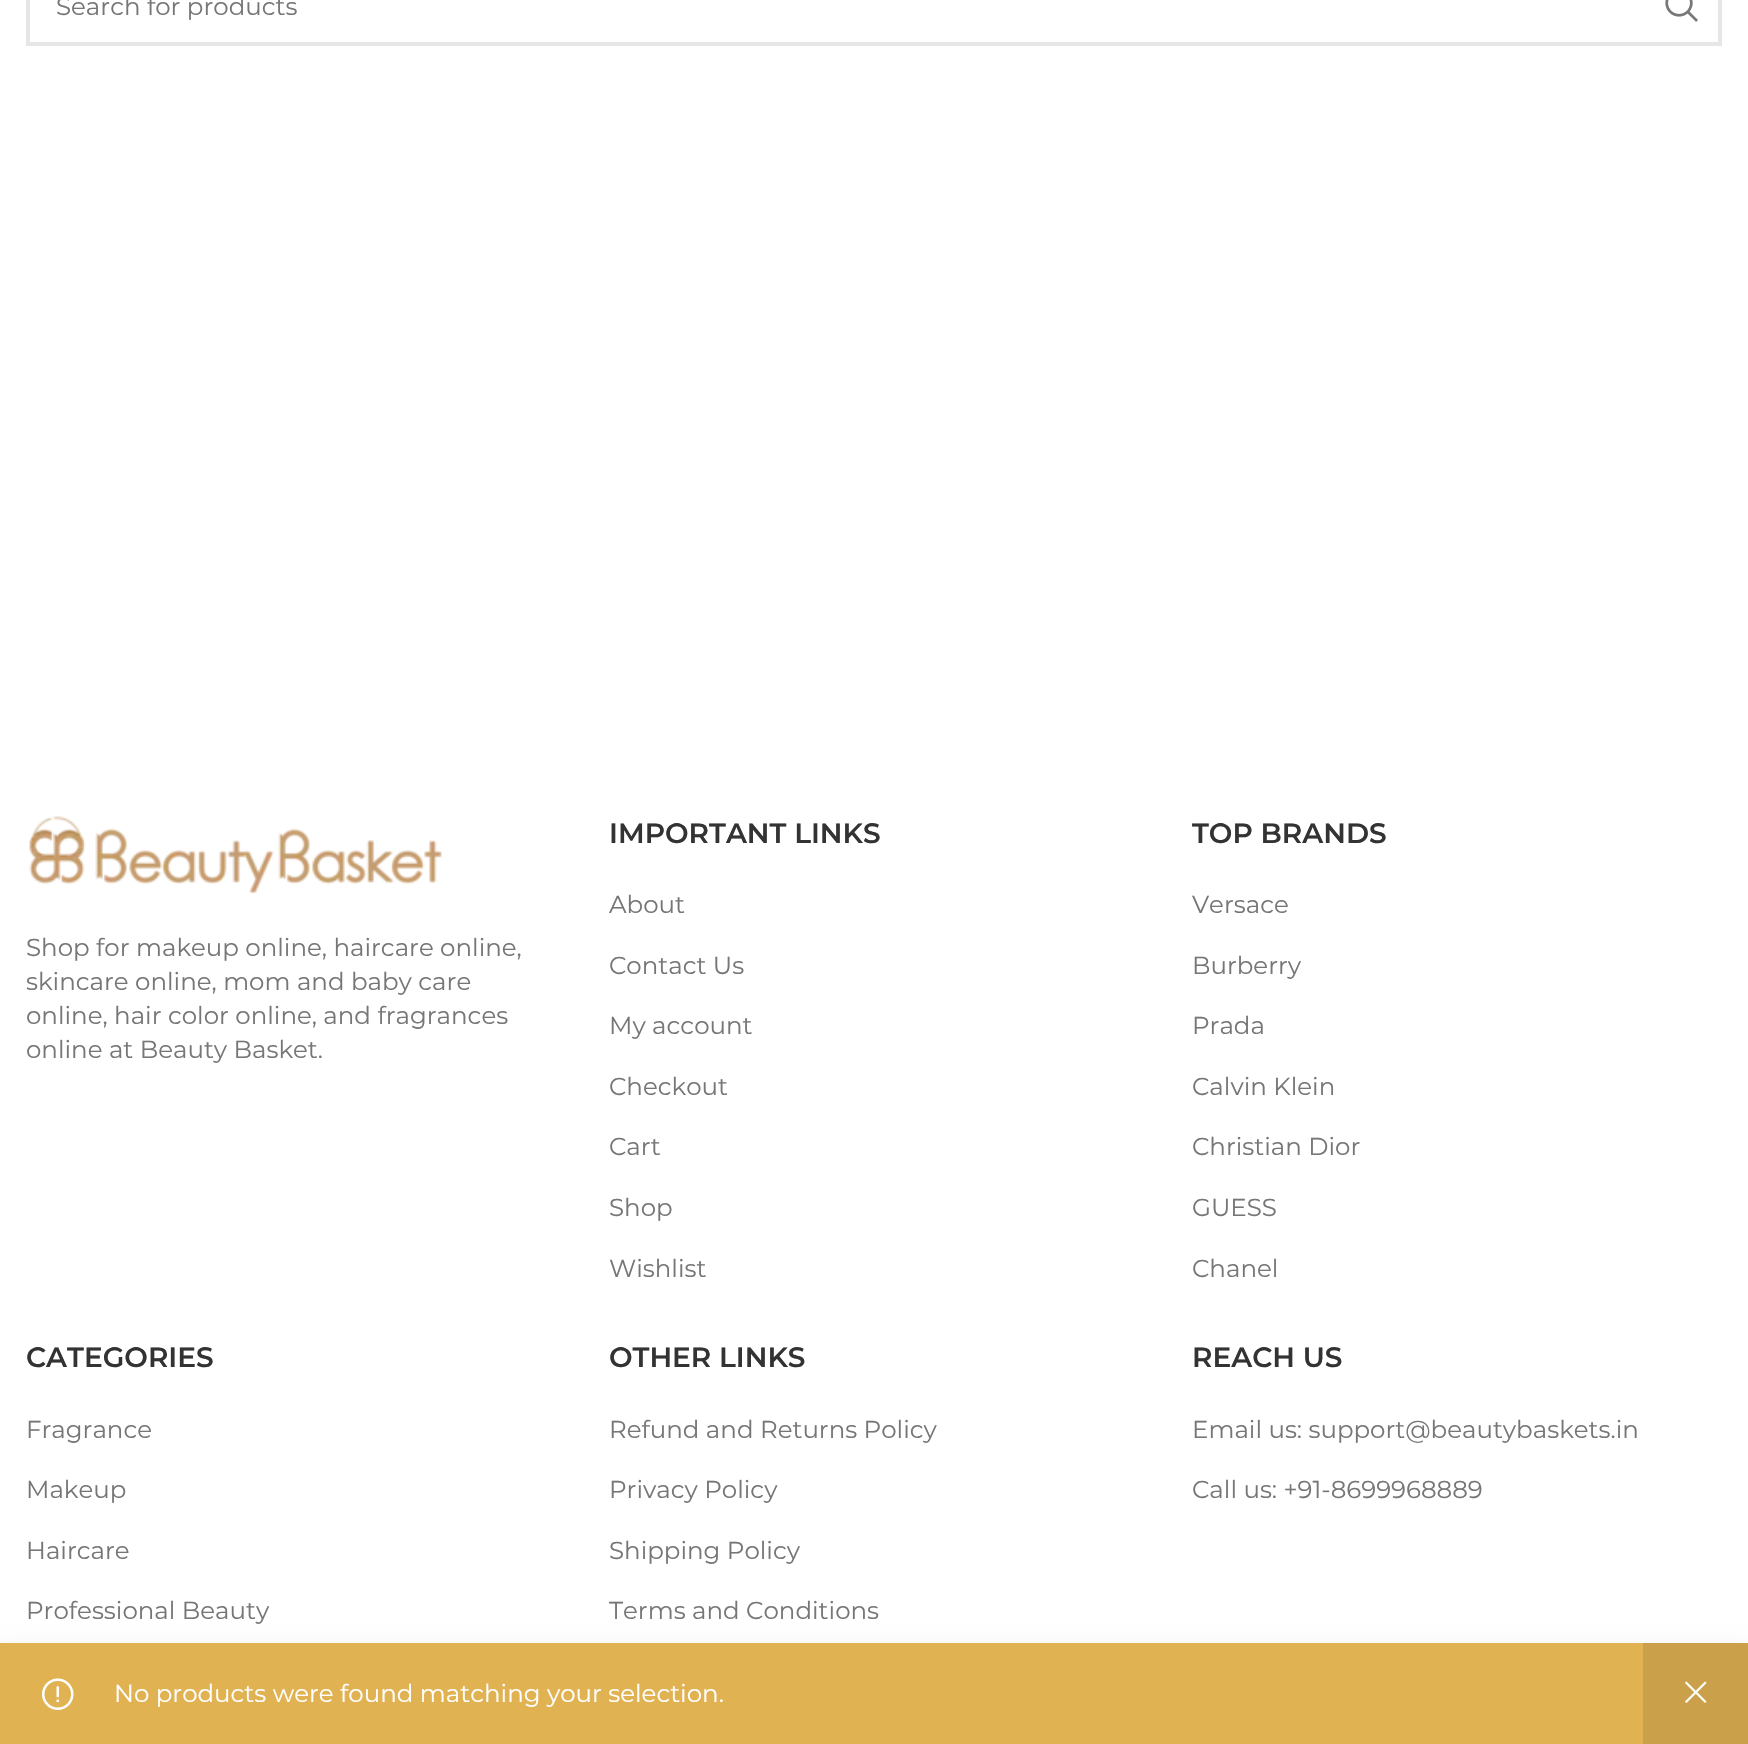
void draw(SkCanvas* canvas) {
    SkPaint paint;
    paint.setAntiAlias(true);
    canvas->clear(0xFFFFFFFF);
    paint.setStyle(SkPaint::kStroke_Style);
    paint.setStrokeWidth(4);
    paint.setColor(0xFFE6E6E6);
    canvas->drawRect(SkRect::MakeXYWH(28, -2, 1692, 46), paint);
    SkFont font1(fontMgr->matchFamilyStyle("Montserrat", SkFontStyle::Normal()), 24.5f);
    font1.setSubpixel(true);
    paint.setStyle(SkPaint::kFill_Style);
    paint.setColor(0xFF767676);
    canvas->drawString("Search for products", 56, 15, font1, paint);
    canvas->drawImageRect(SkImages::DeferredFromEncodedData(SkData::MakeFromFileName("img1.png")), SkRect::MakeXYWH(1665, 0, 33, 22), SkSamplingOptions());
    paint.setColor(0x1F000000);
    paint.setMaskFilter(SkMaskFilter::MakeBlur(kNormal_SkBlurStyle, 8));
    canvas->drawRect(SkRect::MakeXYWH(0, 1649, 1748, 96), paint);
    paint.setMaskFilter(nullptr);
    paint.setColor(0xFFE0B252);
    canvas->drawRect(SkRect::MakeXYWH(0, 1643, 1643, 101), paint);
    canvas->drawImageRect(SkImages::DeferredFromEncodedData(SkData::MakeFromFileName("img2.png")), SkRect::MakeXYWH(42, 1678, 32, 32), SkSamplingOptions());
    paint.setColor(0xFFFFFFFF);
    canvas->drawString("No products were found matching your selection.", 114, 1702, font1, paint);
    paint.setColor(0xFFCAA04A);
    canvas->drawRect(SkRect::MakeXYWH(1643, 1643, 105, 101), paint);
    canvas->drawImageRect(SkImages::DeferredFromEncodedData(SkData::MakeFromFileName("img3.png")), SkRect::MakeXYWH(1685, 1681, 22, 22), SkSamplingOptions());
    canvas->drawImageRect(SkImages::DeferredFromEncodedData(SkData::MakeFromFileName("img4.png")), SkRect::MakeXYWH(29, 816, 413, 78), SkSamplingOptions());
    paint.setColor(0xFF767676);
    canvas->drawString("Shop for makeup online, haircare online,", 26, 956, font1, paint);
    canvas->drawString("skincare online, mom and baby care", 26, 990, font1, paint);
    canvas->drawString("online, hair color online, and fragrances", 26, 1024, font1, paint);
    canvas->drawString("online at Beauty Basket.", 26, 1058, font1, paint);
    SkFont font2(fontMgr->matchFamilyStyle("Montserrat", SkFontStyle(600, SkFontStyle::kNormal_Width, SkFontStyle::kUpright_Slant)), 28);
    font2.setSubpixel(true);
    paint.setColor(0xFF333333);
    canvas->drawString("IMPORTANT LINKS", 609, 843, font2, paint);
    paint.setColor(0xFF767676);
    canvas->drawString("About", 609, 913, font1, paint);
    canvas->drawString("Contact Us", 609, 974, font1, paint);
    canvas->drawString("My account", 609, 1034, font1, paint);
    canvas->drawString("Checkout", 609, 1095, font1, paint);
    canvas->drawString("Cart", 609, 1155, font1, paint);
    canvas->drawString("Shop", 609, 1216, font1, paint);
    canvas->drawString("Wishlist", 609, 1277, font1, paint);
    paint.setColor(0xFF333333);
    canvas->drawString("TOP BRANDS", 1192, 843, font2, paint);
    paint.setColor(0xFF767676);
    canvas->drawString("Versace", 1192, 913, font1, paint);
    canvas->drawString("Burberry", 1192, 974, font1, paint);
    canvas->drawString("Prada", 1192, 1034, font1, paint);
    canvas->drawString("Calvin Klein", 1192, 1095, font1, paint);
    canvas->drawString("Christian Dior", 1192, 1155, font1, paint);
    canvas->drawString("GUESS", 1192, 1216, font1, paint);
    canvas->drawString("Chanel", 1192, 1277, font1, paint);
    paint.setColor(0xFF333333);
    canvas->drawString("CATEGORIES", 26, 1367, font2, paint);
    paint.setColor(0xFF767676);
    canvas->drawString("Fragrance", 26, 1438, font1, paint);
    canvas->drawString("Makeup", 26, 1498, font1, paint);
    canvas->drawString("Haircare", 26, 1559, font1, paint);
    canvas->drawString("Professional Beauty", 26, 1619, font1, paint);
    paint.setColor(0xFF333333);
    canvas->drawString("OTHER LINKS", 609, 1367, font2, paint);
    paint.setColor(0xFF767676);
    canvas->drawString("Refund and Returns Policy", 609, 1438, font1, paint);
    canvas->drawString("Privacy Policy", 609, 1498, font1, paint);
    canvas->drawString("Shipping Policy", 609, 1559, font1, paint);
    canvas->drawString("Terms and Conditions", 609, 1619, font1, paint);
    paint.setColor(0xFF333333);
    canvas->drawString("REACH US", 1192, 1367, font2, paint);
    paint.setColor(0xFF767676);
    canvas->drawString("Email us: support@beautybaskets.in", 1192, 1438, font1, paint);
    canvas->drawString("Call us: +91-8699968889", 1192, 1498, font1, paint);
}
